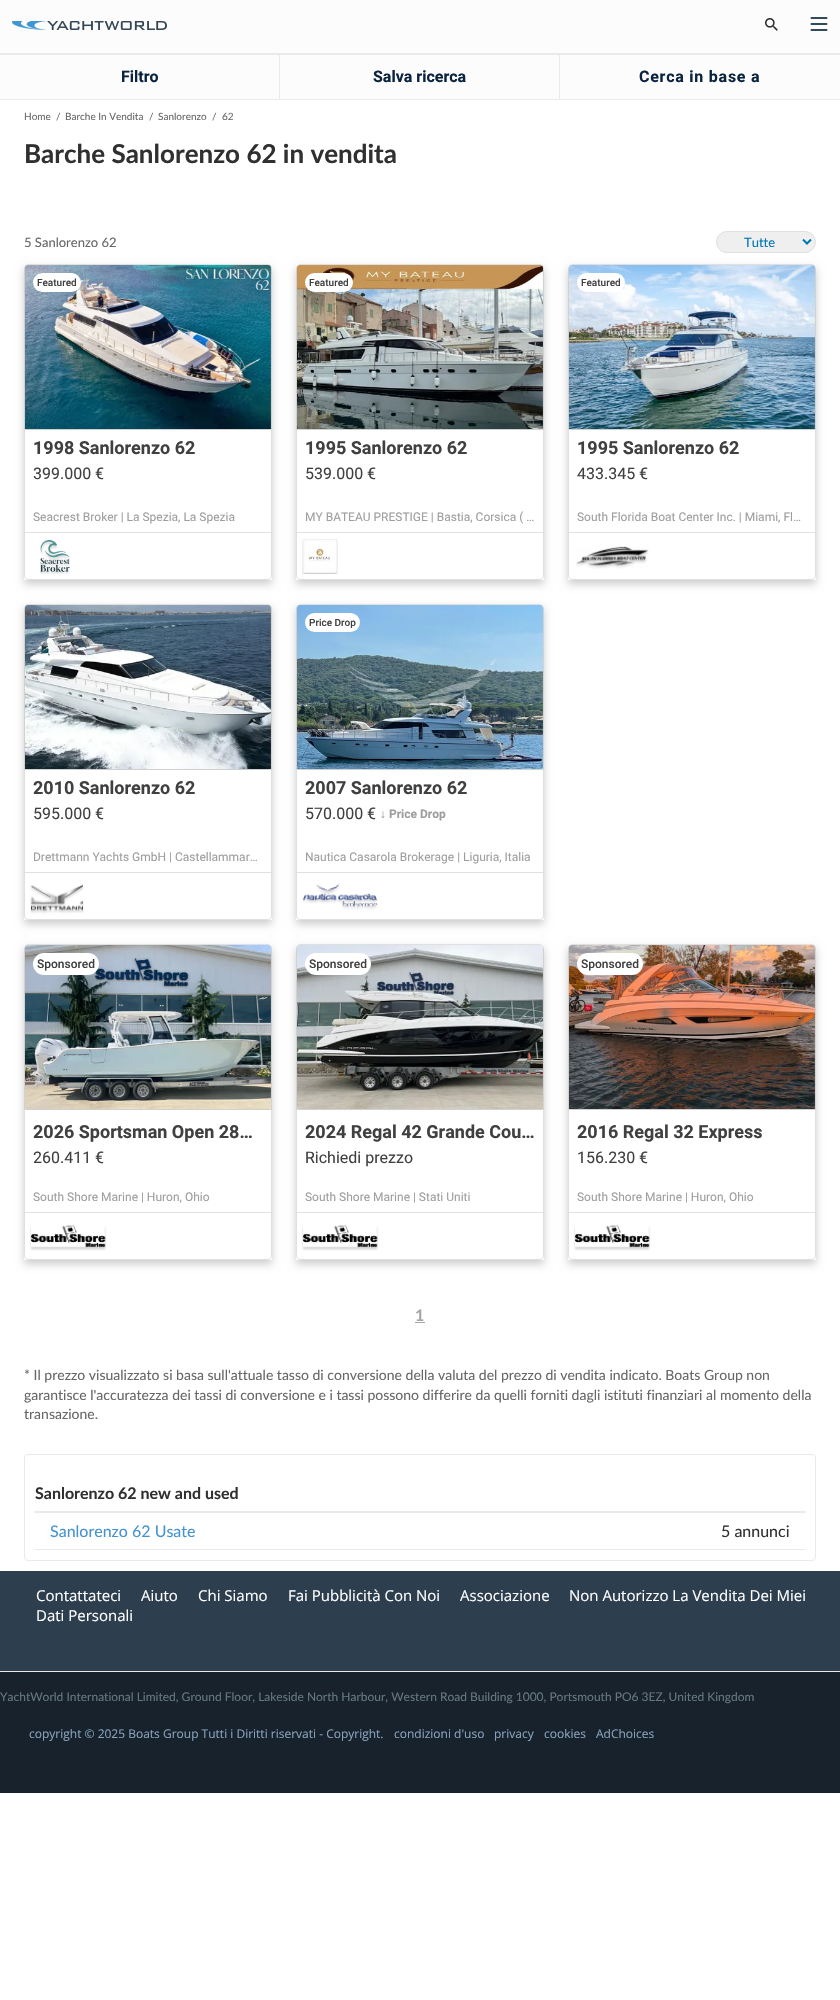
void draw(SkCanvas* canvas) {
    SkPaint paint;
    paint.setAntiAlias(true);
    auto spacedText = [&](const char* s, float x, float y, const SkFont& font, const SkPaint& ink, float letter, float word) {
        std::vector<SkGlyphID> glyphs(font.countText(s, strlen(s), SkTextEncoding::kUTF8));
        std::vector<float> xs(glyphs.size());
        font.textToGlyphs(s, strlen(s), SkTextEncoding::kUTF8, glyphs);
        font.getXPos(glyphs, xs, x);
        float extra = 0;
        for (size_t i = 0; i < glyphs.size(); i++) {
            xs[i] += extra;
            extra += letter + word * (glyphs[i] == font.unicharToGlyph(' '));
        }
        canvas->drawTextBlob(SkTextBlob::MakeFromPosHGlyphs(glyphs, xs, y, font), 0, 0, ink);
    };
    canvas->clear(0xFFFFFFFF);
    paint.setColor(0xFFFCFCFC);
    canvas->drawRect(SkRect::MakeXYWH(0, 0, 840, 53), paint);
    paint.setColor(0xFFEAEAEA);
    canvas->drawRect(SkRect::MakeXYWH(0, 53, 840, 2), paint);
    canvas->drawImageRect(SkImages::DeferredFromEncodedData(SkData::MakeFromFileName("img1.png")), SkRect::MakeXYWH(12, 21, 155, 9), SkSamplingOptions());
    paint.setStyle(SkPaint::kStroke_Style);
    paint.setStrokeWidth(2);
    paint.setStrokeCap(SkPaint::kRound_Cap);
    paint.setColor(0xFF35495D);
    canvas->drawPath(SkPathBuilder().moveTo(811.5f, 18).lineTo(826.5f, 18).moveTo(811.5f, 24).lineTo(826.5f, 24).moveTo(811.5f, 30).lineTo(826.5f, 30).detach(), paint);
    canvas->drawImageRect(SkImages::DeferredFromEncodedData(SkData::MakeFromFileName("img2.png")), SkRect::MakeXYWH(765, 18, 13, 13), SkSamplingOptions());
    paint.setStyle(SkPaint::kFill_Style);
    paint.setColor(0xFFEAEAEA);
    canvas->drawRect(SkRect::MakeXYWH(0, 99, 840, 1), paint);
    paint.setColor(0xFFFCFCFC);
    canvas->drawRect(SkRect::MakeXYWH(0, 55, 279, 44), paint);
    paint.setColor(0xFFEAEAEA);
    canvas->drawRect(SkRect::MakeXYWH(279, 55, 1, 44), paint);
    SkFont font1(fontMgr->matchFamilyStyle("Roboto", SkFontStyle::Bold()), 16);
    font1.setSubpixel(true);
    paint.setColor(0xFF0A243F);
    canvas->drawString("Filtro", 121, 82, font1, paint);
    paint.setColor(0xFFFCFCFC);
    canvas->drawRect(SkRect::MakeXYWH(280, 55, 279, 44), paint);
    paint.setColor(0xFFEAEAEA);
    canvas->drawRect(SkRect::MakeXYWH(559, 55, 1, 44), paint);
    paint.setColor(0xFF0A243F);
    canvas->drawString("Salva ricerca", 373, 82, font1, paint);
    paint.setColor(0xFFFCFCFC);
    canvas->drawRect(SkRect::MakeXYWH(560, 55, 280, 44), paint);
    paint.setColor(0xFF0A243F);
    spacedText("Cerca in base a", 639, 82, font1, paint, 0.75f, 0);
    SkFont font2(fontMgr->matchFamilyStyle("Lato", SkFontStyle::Normal()), 10);
    font2.setSubpixel(true);
    paint.setColor(0xFF676767);
    canvas->drawString("Home", 24, 120, font2, paint);
    canvas->drawString("/", 56, 120, font2, paint);
    canvas->drawString("Barche In Vendita", 65, 120, font2, paint);
    canvas->drawString("/", 149, 120, font2, paint);
    canvas->drawString("Sanlorenzo", 158, 120, font2, paint);
    canvas->drawString("/", 212, 120, font2, paint);
    canvas->drawString("62", 222, 120, font2, paint);
    SkFont font3(fontMgr->matchFamilyStyle("Lato", SkFontStyle::Bold()), 26);
    font3.setSubpixel(true);
    paint.setColor(0xFF303030);
    canvas->drawString("Barche Sanlorenzo 62 in vendita", 24, 163, font3, paint);
    SkFont font4(fontMgr->matchFamilyStyle("Lato", SkFontStyle::Normal()), 13);
    font4.setSubpixel(true);
    paint.setColor(0xFF676767);
    canvas->drawString("5 Sanlorenzo 62", 24, 247, font4, paint);
    paint.setColor(0xFFEFEFEF);
    canvas->drawRoundRect(SkRect::MakeXYWH(716.5f, 231.5f, 99, 21), 10.5f, 10.5f, paint);
    paint.setStyle(SkPaint::kStroke_Style);
    paint.setStrokeWidth(1);
    paint.setStrokeCap(SkPaint::kButt_Cap);
    paint.setColor(0xFFE0E0E0);
    canvas->drawRoundRect(SkRect::MakeXYWH(716.5f, 231.5f, 99, 21), 10.5f, 10.5f, paint);
    paint.setStrokeWidth(2);
    paint.setColor(0xFF0077B3);
    canvas->drawPath(SkPathBuilder().moveTo(803, 239.5f).lineTo(807, 243.5f).lineTo(811, 239.5f).detach(), paint);
    paint.setStyle(SkPaint::kFill_Style);
    canvas->drawString("Tutte", 744, 247, font4, paint);
    canvas->save();
    canvas->clipPath(SkPathBuilder(SkPathFillType::kEvenOdd).moveTo(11, 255).lineTo(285, 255).lineTo(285, 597).lineTo(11, 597).close().moveTo(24, 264).lineTo(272, 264).lineTo(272, 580).lineTo(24, 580).close().detach(), true);
    paint.setColor(0x33000000);
    paint.setMaskFilter(SkMaskFilter::MakeBlur(kNormal_SkBlurStyle, 4));
    canvas->drawRect(SkRect::MakeXYWH(24, 268, 248, 316), paint);
    paint.setMaskFilter(nullptr);
    canvas->restore();
    paint.setStyle(SkPaint::kStroke_Style);
    paint.setStrokeWidth(1);
    paint.setColor(0xFFE0E0E0);
    canvas->drawRoundRect(SkRect::MakeXYWH(24.5f, 264.5f, 247, 315), 3.5f, 3.5f, paint);
    canvas->drawImageRect(SkImages::DeferredFromEncodedData(SkData::MakeFromFileName("img3.png")), SkRect::MakeXYWH(24, 265, 248, 165), SkSamplingOptions());
    paint.setStyle(SkPaint::kFill_Style);
    paint.setColor(0xFFFFFFFF);
    canvas->drawRoundRect(SkRect::MakeXYWH(33, 273, 48, 19), 9.5f, 9.5f, paint);
    SkFont font5(fontMgr->matchFamilyStyle("Roboto", SkFontStyle(500, SkFontStyle::kNormal_Width, SkFontStyle::kUpright_Slant)), 10);
    font5.setSubpixel(true);
    paint.setColor(0xFF404040);
    canvas->drawString("Featured", 37, 286, font5, paint);
    SkFont font6(fontMgr->matchFamilyStyle("Roboto", SkFontStyle::Bold()), 18);
    font6.setSubpixel(true);
    canvas->drawString("1998 Sanlorenzo 62", 33, 454, font6, paint);
    SkFont font7(fontMgr->matchFamilyStyle("Roboto", SkFontStyle::Normal()), 16);
    font7.setSubpixel(true);
    canvas->drawString("399.000 €", 33, 479, font7, paint);
    SkFont font8(fontMgr->matchFamilyStyle("Roboto", SkFontStyle::Normal()), 12);
    font8.setSubpixel(true);
    paint.setColor(0xFF9E9E9E);
    canvas->drawString("Seacrest Broker | La Spezia, La Spezia", 33, 521, font8, paint);
    paint.setColor(0xFFE0E0E0);
    canvas->drawRect(SkRect::MakeXYWH(25, 532, 246, 1), paint);
    canvas->drawImageRect(SkImages::DeferredFromEncodedData(SkData::MakeFromFileName("img4.png")), SkRect::MakeXYWH(40, 539, 30, 35), SkSamplingOptions());
    canvas->save();
    canvas->clipPath(SkPathBuilder(SkPathFillType::kEvenOdd).moveTo(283, 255).lineTo(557, 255).lineTo(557, 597).lineTo(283, 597).close().moveTo(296, 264).lineTo(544, 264).lineTo(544, 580).lineTo(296, 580).close().detach(), true);
    paint.setColor(0x33000000);
    paint.setMaskFilter(SkMaskFilter::MakeBlur(kNormal_SkBlurStyle, 4));
    canvas->drawRect(SkRect::MakeXYWH(296, 268, 248, 316), paint);
    paint.setMaskFilter(nullptr);
    canvas->restore();
    paint.setStyle(SkPaint::kStroke_Style);
    paint.setColor(0xFFE0E0E0);
    canvas->drawRoundRect(SkRect::MakeXYWH(296.5f, 264.5f, 247, 315), 3.5f, 3.5f, paint);
    canvas->drawImageRect(SkImages::DeferredFromEncodedData(SkData::MakeFromFileName("img5.png")), SkRect::MakeXYWH(296, 265, 248, 165), SkSamplingOptions());
    paint.setStyle(SkPaint::kFill_Style);
    paint.setColor(0xFFFFFFFF);
    canvas->drawRoundRect(SkRect::MakeXYWH(305, 273, 48, 19), 9.5f, 9.5f, paint);
    paint.setColor(0xFF404040);
    canvas->drawString("Featured", 309, 286, font5, paint);
    canvas->drawString("1995 Sanlorenzo 62", 305, 454, font6, paint);
    canvas->drawString("539.000 €", 305, 479, font7, paint);
    paint.setColor(0xFF9E9E9E);
    canvas->drawString("MY BATEAU PRESTIGE | Bastia, Corsica ( …", 305, 521, font8, paint);
    paint.setColor(0xFFE0E0E0);
    canvas->drawRect(SkRect::MakeXYWH(297, 532, 246, 1), paint);
    canvas->drawImageRect(SkImages::DeferredFromEncodedData(SkData::MakeFromFileName("img6.png")), SkRect::MakeXYWH(302, 539, 36, 35), SkSamplingOptions());
    canvas->save();
    canvas->clipPath(SkPathBuilder(SkPathFillType::kEvenOdd).moveTo(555, 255).lineTo(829, 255).lineTo(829, 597).lineTo(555, 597).close().moveTo(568, 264).lineTo(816, 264).lineTo(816, 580).lineTo(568, 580).close().detach(), true);
    paint.setColor(0x33000000);
    paint.setMaskFilter(SkMaskFilter::MakeBlur(kNormal_SkBlurStyle, 4));
    canvas->drawRect(SkRect::MakeXYWH(568, 268, 248, 316), paint);
    paint.setMaskFilter(nullptr);
    canvas->restore();
    paint.setStyle(SkPaint::kStroke_Style);
    paint.setColor(0xFFE0E0E0);
    canvas->drawRoundRect(SkRect::MakeXYWH(568.5f, 264.5f, 247, 315), 3.5f, 3.5f, paint);
    canvas->drawImageRect(SkImages::DeferredFromEncodedData(SkData::MakeFromFileName("img7.png")), SkRect::MakeXYWH(568, 265, 248, 165), SkSamplingOptions());
    paint.setStyle(SkPaint::kFill_Style);
    paint.setColor(0xFFFFFFFF);
    canvas->drawRoundRect(SkRect::MakeXYWH(577, 273, 48, 19), 9.5f, 9.5f, paint);
    paint.setColor(0xFF404040);
    canvas->drawString("Featured", 581, 286, font5, paint);
    canvas->drawString("1995 Sanlorenzo 62", 577, 454, font6, paint);
    canvas->drawString("433.345 €", 577, 479, font7, paint);
    paint.setColor(0xFF9E9E9E);
    canvas->drawString("South Florida Boat Center Inc. | Miami, Fl…", 577, 521, font8, paint);
    paint.setColor(0xFFE0E0E0);
    canvas->drawRect(SkRect::MakeXYWH(569, 532, 246, 1), paint);
    canvas->drawImageRect(SkImages::DeferredFromEncodedData(SkData::MakeFromFileName("img8.png")), SkRect::MakeXYWH(576, 546, 73, 23), SkSamplingOptions());
    canvas->save();
    canvas->clipPath(SkPathBuilder(SkPathFillType::kEvenOdd).moveTo(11, 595).lineTo(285, 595).lineTo(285, 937).lineTo(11, 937).close().moveTo(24, 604).lineTo(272, 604).lineTo(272, 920).lineTo(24, 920).close().detach(), true);
    paint.setColor(0x33000000);
    paint.setMaskFilter(SkMaskFilter::MakeBlur(kNormal_SkBlurStyle, 4));
    canvas->drawRect(SkRect::MakeXYWH(24, 608, 248, 316), paint);
    paint.setMaskFilter(nullptr);
    canvas->restore();
    paint.setStyle(SkPaint::kStroke_Style);
    paint.setColor(0xFFE0E0E0);
    canvas->drawRoundRect(SkRect::MakeXYWH(24.5f, 604.5f, 247, 315), 3.5f, 3.5f, paint);
    canvas->drawImageRect(SkImages::DeferredFromEncodedData(SkData::MakeFromFileName("img9.png")), SkRect::MakeXYWH(24, 605, 248, 165), SkSamplingOptions());
    paint.setStyle(SkPaint::kFill_Style);
    paint.setColor(0xFF404040);
    canvas->drawString("2010 Sanlorenzo 62", 33, 794, font6, paint);
    canvas->drawString("595.000 €", 33, 819, font7, paint);
    paint.setColor(0xFF9E9E9E);
    canvas->drawString("Drettmann Yachts GmbH | Castellammar…", 33, 861, font8, paint);
    paint.setColor(0xFFE0E0E0);
    canvas->drawRect(SkRect::MakeXYWH(25, 872, 246, 1), paint);
    canvas->drawImageRect(SkImages::DeferredFromEncodedData(SkData::MakeFromFileName("img10.png")), SkRect::MakeXYWH(30, 884, 54, 30), SkSamplingOptions());
    canvas->save();
    canvas->clipPath(SkPathBuilder(SkPathFillType::kEvenOdd).moveTo(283, 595).lineTo(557, 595).lineTo(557, 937).lineTo(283, 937).close().moveTo(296, 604).lineTo(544, 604).lineTo(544, 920).lineTo(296, 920).close().detach(), true);
    paint.setColor(0x33000000);
    paint.setMaskFilter(SkMaskFilter::MakeBlur(kNormal_SkBlurStyle, 4));
    canvas->drawRect(SkRect::MakeXYWH(296, 608, 248, 316), paint);
    paint.setMaskFilter(nullptr);
    canvas->restore();
    paint.setStyle(SkPaint::kStroke_Style);
    paint.setColor(0xFFE0E0E0);
    canvas->drawRoundRect(SkRect::MakeXYWH(296.5f, 604.5f, 247, 315), 3.5f, 3.5f, paint);
    canvas->drawImageRect(SkImages::DeferredFromEncodedData(SkData::MakeFromFileName("img11.png")), SkRect::MakeXYWH(296, 605, 248, 165), SkSamplingOptions());
    paint.setStyle(SkPaint::kFill_Style);
    paint.setColor(0xFFFFFFFF);
    canvas->drawRoundRect(SkRect::MakeXYWH(305, 613, 55, 19), 9.5f, 9.5f, paint);
    paint.setColor(0xFF404040);
    canvas->drawString("Price Drop", 309, 626, font5, paint);
    canvas->drawString("2007 Sanlorenzo 62", 305, 794, font6, paint);
    canvas->drawString("570.000 €", 305, 819, font7, paint);
    SkFont font9(fontMgr->matchFamilyStyle("Liberation Sans", SkFontStyle::Bold()), 12);
    font9.setSubpixel(true);
    paint.setColor(0xFF9E9E9E);
    canvas->drawString("↓", 380, 818, font9, paint);
    SkFont font10(fontMgr->matchFamilyStyle("Roboto", SkFontStyle::Bold()), 12);
    font10.setSubpixel(true);
    canvas->drawString("Price Drop", 389, 818, font10, paint);
    canvas->drawString("Nautica Casarola Brokerage | Liguria, Italia", 305, 861, font8, paint);
    paint.setColor(0xFFE0E0E0);
    canvas->drawRect(SkRect::MakeXYWH(297, 872, 246, 1), paint);
    canvas->drawImageRect(SkImages::DeferredFromEncodedData(SkData::MakeFromFileName("img12.png")), SkRect::MakeXYWH(302, 883, 76, 27), SkSamplingOptions());
    canvas->save();
    canvas->clipPath(SkPathBuilder(SkPathFillType::kEvenOdd).moveTo(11, 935).lineTo(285, 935).lineTo(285, 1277).lineTo(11, 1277).close().moveTo(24, 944).lineTo(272, 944).lineTo(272, 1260).lineTo(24, 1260).close().detach(), true);
    paint.setColor(0x33000000);
    paint.setMaskFilter(SkMaskFilter::MakeBlur(kNormal_SkBlurStyle, 4));
    canvas->drawRect(SkRect::MakeXYWH(24, 948, 248, 316), paint);
    paint.setMaskFilter(nullptr);
    canvas->restore();
    paint.setStyle(SkPaint::kStroke_Style);
    paint.setColor(0xFFE0E0E0);
    canvas->drawRoundRect(SkRect::MakeXYWH(24.5f, 944.5f, 247, 315), 3.5f, 3.5f, paint);
    canvas->drawImageRect(SkImages::DeferredFromEncodedData(SkData::MakeFromFileName("img13.png")), SkRect::MakeXYWH(24, 945, 248, 165), SkSamplingOptions());
    paint.setStyle(SkPaint::kFill_Style);
    paint.setColor(0xFFFFFFFF);
    canvas->drawRoundRect(SkRect::MakeXYWH(33, 953, 66, 22), 11, 11, paint);
    SkFont font11(fontMgr->matchFamilyStyle("Roboto", SkFontStyle(500, SkFontStyle::kNormal_Width, SkFontStyle::kUpright_Slant)), 12);
    font11.setSubpixel(true);
    paint.setColor(0xFF404040);
    canvas->drawString("Sponsored", 37, 968, font11, paint);
    canvas->drawString("2026 Sportsman Open 28…", 33, 1138, font6, paint);
    canvas->drawString("260.411 €", 33, 1163, font7, paint);
    paint.setColor(0xFF9E9E9E);
    canvas->drawString("South Shore Marine | Huron, Ohio", 33, 1201, font8, paint);
    paint.setColor(0xFFE0E0E0);
    canvas->drawRect(SkRect::MakeXYWH(25, 1212, 246, 1), paint);
    canvas->drawImageRect(SkImages::DeferredFromEncodedData(SkData::MakeFromFileName("img14.png")), SkRect::MakeXYWH(30, 1224, 77, 27), SkSamplingOptions());
    canvas->save();
    canvas->clipPath(SkPathBuilder(SkPathFillType::kEvenOdd).moveTo(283, 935).lineTo(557, 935).lineTo(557, 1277).lineTo(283, 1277).close().moveTo(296, 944).lineTo(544, 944).lineTo(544, 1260).lineTo(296, 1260).close().detach(), true);
    paint.setColor(0x33000000);
    paint.setMaskFilter(SkMaskFilter::MakeBlur(kNormal_SkBlurStyle, 4));
    canvas->drawRect(SkRect::MakeXYWH(296, 948, 248, 316), paint);
    paint.setMaskFilter(nullptr);
    canvas->restore();
    paint.setStyle(SkPaint::kStroke_Style);
    paint.setColor(0xFFE0E0E0);
    canvas->drawRoundRect(SkRect::MakeXYWH(296.5f, 944.5f, 247, 315), 3.5f, 3.5f, paint);
    canvas->drawImageRect(SkImages::DeferredFromEncodedData(SkData::MakeFromFileName("img15.png")), SkRect::MakeXYWH(296, 945, 248, 165), SkSamplingOptions());
    paint.setStyle(SkPaint::kFill_Style);
    paint.setColor(0xFFFFFFFF);
    canvas->drawRoundRect(SkRect::MakeXYWH(305, 953, 66, 22), 11, 11, paint);
    paint.setColor(0xFF404040);
    canvas->drawString("Sponsored", 309, 968, font11, paint);
    canvas->drawString("2024 Regal 42 Grande Cou…", 305, 1138, font6, paint);
    canvas->drawString("Richiedi prezzo", 305, 1163, font7, paint);
    paint.setColor(0xFF9E9E9E);
    canvas->drawString("South Shore Marine | Stati Uniti", 305, 1201, font8, paint);
    paint.setColor(0xFFE0E0E0);
    canvas->drawRect(SkRect::MakeXYWH(297, 1212, 246, 1), paint);
    canvas->drawImageRect(SkImages::DeferredFromEncodedData(SkData::MakeFromFileName("img14.png")), SkRect::MakeXYWH(302, 1224, 77, 27), SkSamplingOptions());
    canvas->save();
    canvas->clipPath(SkPathBuilder(SkPathFillType::kEvenOdd).moveTo(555, 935).lineTo(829, 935).lineTo(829, 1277).lineTo(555, 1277).close().moveTo(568, 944).lineTo(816, 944).lineTo(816, 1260).lineTo(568, 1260).close().detach(), true);
    paint.setColor(0x33000000);
    paint.setMaskFilter(SkMaskFilter::MakeBlur(kNormal_SkBlurStyle, 4));
    canvas->drawRect(SkRect::MakeXYWH(568, 948, 248, 316), paint);
    paint.setMaskFilter(nullptr);
    canvas->restore();
    paint.setStyle(SkPaint::kStroke_Style);
    paint.setColor(0xFFE0E0E0);
    canvas->drawRoundRect(SkRect::MakeXYWH(568.5f, 944.5f, 247, 315), 3.5f, 3.5f, paint);
    canvas->drawImageRect(SkImages::DeferredFromEncodedData(SkData::MakeFromFileName("img16.png")), SkRect::MakeXYWH(568, 945, 248, 165), SkSamplingOptions());
    paint.setStyle(SkPaint::kFill_Style);
    paint.setColor(0xFFFFFFFF);
    canvas->drawRoundRect(SkRect::MakeXYWH(577, 953, 66, 22), 11, 11, paint);
    paint.setColor(0xFF404040);
    canvas->drawString("Sponsored", 581, 968, font11, paint);
    canvas->drawString("2016 Regal 32 Express", 577, 1138, font6, paint);
    canvas->drawString("156.230 €", 577, 1163, font7, paint);
    paint.setColor(0xFF9E9E9E);
    canvas->drawString("South Shore Marine | Huron, Ohio", 577, 1201, font8, paint);
    paint.setColor(0xFFE0E0E0);
    canvas->drawRect(SkRect::MakeXYWH(569, 1212, 246, 1), paint);
    canvas->drawImageRect(SkImages::DeferredFromEncodedData(SkData::MakeFromFileName("img14.png")), SkRect::MakeXYWH(574, 1224, 77, 27), SkSamplingOptions());
    SkFont font12(fontMgr->matchFamilyStyle("Lato", SkFontStyle::Bold()), 16);
    font12.setSubpixel(true);
    paint.setColor(0xFFA5A5A5);
    canvas->drawString("1", 415, 1321, font12, paint);
    canvas->drawRect(SkRect::MakeXYWH(415, 1322, 10, 1), paint);
    SkFont font13(fontMgr->matchFamilyStyle("Lato", SkFontStyle::Normal()), 14);
    font13.setSubpixel(true);
    paint.setColor(0xFF676767);
    canvas->drawString("* Il prezzo visualizzato si basa sull'attuale tasso di conversione della valuta del prezzo di vendita indicato. Boats Group non", 24, 1380, font13, paint);
    canvas->drawString("garantisce l'accuratezza dei tassi di conversione e i tassi possono differire da quelli forniti dagli istituti finanziari al momento della", 24, 1400, font13, paint);
    canvas->drawString("transazione.", 24, 1419, font13, paint);
    paint.setStyle(SkPaint::kStroke_Style);
    paint.setColor(0xFFEAEAEA);
    canvas->drawRoundRect(SkRect::MakeXYWH(24.5f, 1454.5f, 791, 106), 3.5f, 3.5f, paint);
    paint.setStyle(SkPaint::kFill_Style);
    canvas->drawRect(SkRect::MakeXYWH(35, 1511, 770, 2), paint);
    paint.setColor(0xFF303030);
    canvas->drawString("Sanlorenzo 62 new and used", 35, 1499, font12, paint);
    paint.setColor(0xFFEAEAEA);
    canvas->drawRect(SkRect::MakeXYWH(35, 1549, 770, 1), paint);
    SkFont font14(fontMgr->matchFamilyStyle("Lato", SkFontStyle::Normal()), 16);
    font14.setSubpixel(true);
    paint.setColor(0xFF4492D0);
    canvas->drawString("Sanlorenzo 62 Usate", 50, 1537, font14, paint);
    paint.setColor(0xFF303030);
    canvas->drawString("5 annunci", 721, 1537, font14, paint);
    paint.setColor(0xFF17222D);
    canvas->drawRect(SkRect::MakeXYWH(0, 1672, 840, 121), paint);
    paint.setColor(0xFF2D3E4F);
    canvas->drawRect(SkRect::MakeXYWH(0, 1571, 840, 100), paint);
    paint.setColor(0xFFEAEAEA);
    canvas->drawRect(SkRect::MakeXYWH(0, 1671, 840, 1), paint);
    SkFont font15(fontMgr->matchFamilyStyle("Open Sans", SkFontStyle::Normal()), 15);
    font15.setSubpixel(true);
    paint.setColor(0xFFFFFFFF);
    canvas->drawString("Contattateci", 36, 1601, font15, paint);
    canvas->drawString("Aiuto", 141, 1601, font15, paint);
    canvas->drawString("Chi Siamo", 198, 1601, font15, paint);
    canvas->drawString("Fai Pubblicità Con Noi", 288, 1601, font15, paint);
    canvas->drawString("Associazione", 460, 1601, font15, paint);
    canvas->drawString("Non Autorizzo La Vendita Dei Miei", 569, 1601, font15, paint);
    canvas->drawString("Dati Personali", 36, 1621, font15, paint);
    SkFont font16(fontMgr->matchFamilyStyle("Lato", SkFontStyle::Normal()), 12);
    font16.setSubpixel(true);
    paint.setColor(0xFF66777F);
    canvas->drawString("YachtWorld International Limited, Ground Floor, Lakeside North Harbour, Western Road Building 1000, Portsmouth PO6 3EZ, United Kingdom", 0, 1701, font16, paint);
    SkFont font17(fontMgr->matchFamilyStyle("Open Sans", SkFontStyle::Normal()), 12);
    font17.setSubpixel(true);
    paint.setColor(0xFF89A2BC);
    canvas->drawString("copyright © 2025 Boats Group Tutti i Diritti riservati - Copyright.", 29, 1738, font17, paint);
    canvas->drawString("condizioni d'uso", 394, 1738, font17, paint);
    canvas->drawString("privacy", 494, 1738, font17, paint);
    canvas->drawString("cookies", 544, 1738, font17, paint);
    canvas->drawString("AdChoices", 596, 1738, font17, paint);
}
